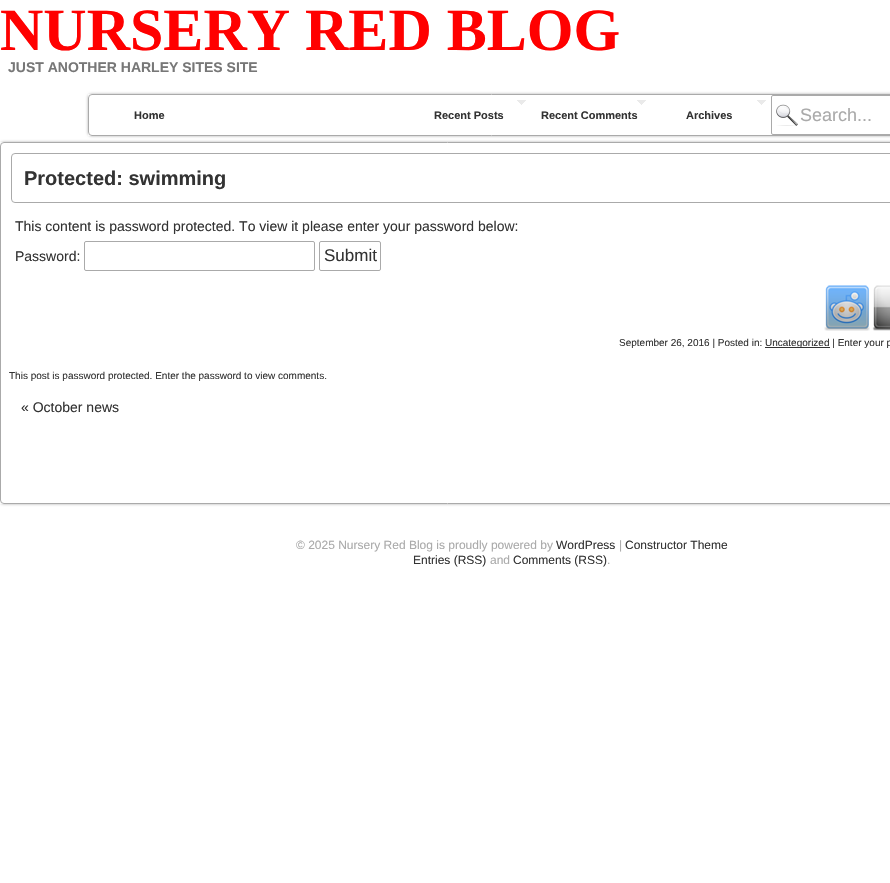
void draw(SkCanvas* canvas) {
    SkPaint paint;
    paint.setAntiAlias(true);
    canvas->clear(0xFFFFFFFF);
    SkFont font1(fontMgr->matchFamilyStyle("Liberation Serif", SkFontStyle::Bold()), 60);
    font1.setSubpixel(true);
    paint.setColor(0xFFFF0000);
    canvas->drawString("NURSERY RED BLOG", 0, 50, font1, paint);
    SkFont font2(fontMgr->matchFamilyStyle("Liberation Sans", SkFontStyle::Bold()), 14);
    font2.setSubpixel(true);
    paint.setColor(0xFF777777);
    canvas->drawString("JUST ANOTHER HARLEY SITES SITE", 8, 72, font2, paint);
    canvas->save();
    canvas->clipPath(SkPathBuilder(SkPathFillType::kEvenOdd).moveTo(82, 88).lineTo(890, 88).lineTo(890, 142).lineTo(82, 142).close().moveTo(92, 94).lineTo(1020, 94).cubicTo(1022, 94, 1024, 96, 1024, 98).lineTo(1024, 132).cubicTo(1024, 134, 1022, 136, 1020, 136).lineTo(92, 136).cubicTo(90, 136, 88, 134, 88, 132).lineTo(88, 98).cubicTo(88, 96, 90, 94, 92, 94).close().detach(), true);
    paint.setColor(0xFFAAAAAA);
    paint.setMaskFilter(SkMaskFilter::MakeBlur(kNormal_SkBlurStyle, 1.5f));
    canvas->drawRoundRect(SkRect::MakeXYWH(88, 94, 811, 42), 4, 4, paint);
    paint.setMaskFilter(nullptr);
    canvas->restore();
    paint.setColor(0xCCFFFFFF);
    canvas->drawRect(SkRect::MakeXYWH(88, 94, 3, 42), paint);
    paint.setStyle(SkPaint::kStroke_Style);
    paint.setStrokeWidth(1);
    paint.setColor(0xFFAAAAAA);
    canvas->drawRoundRect(SkRect::MakeXYWH(88.5f, 94.5f, 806, 41), 3.5f, 3.5f, paint);
    SkFont font3(fontMgr->matchFamilyStyle("Liberation Sans", SkFontStyle::Bold()), 11);
    font3.setSubpixel(true);
    paint.setStyle(SkPaint::kFill_Style);
    paint.setColor(0xFF333333);
    canvas->drawString("Home", 134, 119, font3, paint);
    canvas->drawImageRect(SkImages::DeferredFromEncodedData(SkData::MakeFromFileName("img1.png")), SkRect::MakeXYWH(517, 100, 9, 5), SkSamplingOptions());
    canvas->drawString("Recent Posts", 434, 119, font3, paint);
    canvas->drawImageRect(SkImages::DeferredFromEncodedData(SkData::MakeFromFileName("img1.png")), SkRect::MakeXYWH(637, 100, 9, 5), SkSamplingOptions());
    canvas->drawString("Recent Comments", 541, 119, font3, paint);
    canvas->drawImageRect(SkImages::DeferredFromEncodedData(SkData::MakeFromFileName("img1.png")), SkRect::MakeXYWH(757, 100, 9, 5), SkSamplingOptions());
    canvas->drawString("Archives", 686, 119, font3, paint);
    canvas->drawImageRect(SkImages::DeferredFromEncodedData(SkData::MakeFromFileName("img2.png")), SkRect::MakeXYWH(776, 104, 22, 22), SkSamplingOptions());
    paint.setStyle(SkPaint::kStroke_Style);
    paint.setColor(0xFFAAAAAA);
    canvas->drawRoundRect(SkRect::MakeXYWH(771.5f, 95.5f, 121, 39), 1.5f, 1.5f, paint);
    SkFont font4(fontMgr->matchFamilyStyle("Liberation Sans", SkFontStyle::Normal()), 18);
    font4.setSubpixel(true);
    paint.setStyle(SkPaint::kFill_Style);
    canvas->drawString("Search...", 800, 121, font4, paint);
    canvas->save();
    canvas->clipPath(SkPathBuilder(SkPathFillType::kEvenOdd).moveTo(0, 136).lineTo(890, 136).lineTo(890, 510).lineTo(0, 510).close().moveTo(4, 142).lineTo(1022, 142).cubicTo(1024, 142, 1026, 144, 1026, 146).lineTo(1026, 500).cubicTo(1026, 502, 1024, 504, 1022, 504).lineTo(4, 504).cubicTo(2, 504, 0, 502, 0, 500).lineTo(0, 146).cubicTo(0, 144, 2, 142, 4, 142).close().detach(), true);
    paint.setMaskFilter(SkMaskFilter::MakeBlur(kNormal_SkBlurStyle, 1.5f));
    canvas->drawRoundRect(SkRect::MakeXYWH(0, 142, 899, 362), 4, 4, paint);
    paint.setMaskFilter(nullptr);
    canvas->restore();
    paint.setColor(0xCCFFFFFF);
    canvas->drawRect(SkRect::MakeXYWH(0, 142, 3, 362), paint);
    paint.setStyle(SkPaint::kStroke_Style);
    paint.setColor(0xFFAAAAAA);
    canvas->drawRoundRect(SkRect::MakeXYWH(0.5f, 142.5f, 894, 361), 3.5f, 3.5f, paint);
    canvas->drawRoundRect(SkRect::MakeXYWH(11.5f, 153.5f, 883, 49), 3.5f, 3.5f, paint);
    SkFont font5(fontMgr->matchFamilyStyle("Liberation Sans", SkFontStyle::Bold()), 20);
    font5.setSubpixel(true);
    paint.setStyle(SkPaint::kFill_Style);
    paint.setColor(0xFF333333);
    canvas->drawString("Protected: swimming", 24, 185, font5, paint);
    SkFont font6(fontMgr->matchFamilyStyle("Liberation Sans", SkFontStyle::Normal()), 14);
    font6.setSubpixel(true);
    canvas->drawString("This content is password protected. To view it please enter your password below:", 15, 231, font6, paint);
    canvas->drawString("Password:", 15, 261, font6, paint);
    paint.setStyle(SkPaint::kStroke_Style);
    paint.setColor(0xFFAAAAAA);
    canvas->drawRoundRect(SkRect::MakeXYWH(84.5f, 241.5f, 230, 29), 1.5f, 1.5f, paint);
    canvas->drawRoundRect(SkRect::MakeXYWH(319.5f, 241.5f, 61, 29), 1.5f, 1.5f, paint);
    SkFont font7(fontMgr->matchFamilyStyle("Liberation Sans", SkFontStyle::Normal()), 17);
    font7.setSubpixel(true);
    paint.setStyle(SkPaint::kFill_Style);
    paint.setColor(0xFF333333);
    canvas->drawString("Submit", 324, 261, font7, paint);
    canvas->drawImageRect(SkImages::DeferredFromEncodedData(SkData::MakeFromFileName("img3.png")), SkRect::MakeXYWH(824, 285, 46, 46), SkSamplingOptions());
    canvas->drawImageRect(SkImages::DeferredFromEncodedData(SkData::MakeFromFileName("img4.png")), SkRect::MakeXYWH(872, 285, 18, 46), SkSamplingOptions());
    SkFont font8(fontMgr->matchFamilyStyle("Liberation Sans", SkFontStyle::Normal()), 10);
    font8.setSubpixel(true);
    canvas->drawString("September 26, 2016 | Posted in:", 619, 346, font8, paint);
    canvas->drawRect(SkRect::MakeXYWH(765, 347, 65, 1), paint);
    canvas->drawString("Uncategorized | Enter your p", 765, 346, font8, paint);
    canvas->drawString("This post is password protected. Enter the password to view comments.", 9, 379, font8, paint);
    canvas->drawString("« October news", 21, 412, font6, paint);
    SkFont font9(fontMgr->matchFamilyStyle("Liberation Sans", SkFontStyle::Normal()), 12);
    font9.setSubpixel(true);
    paint.setColor(0xFFAAAAAA);
    canvas->drawString("© 2025 Nursery Red Blog is proudly powered by", 296, 549, font9, paint);
    paint.setColor(0xFF333333);
    canvas->drawString("WordPress", 556, 549, font9, paint);
    paint.setColor(0xFFAAAAAA);
    canvas->drawString("|", 619, 549, font9, paint);
    paint.setColor(0xFF333333);
    canvas->drawString("Constructor Theme", 625, 549, font9, paint);
    canvas->drawString("Entries (RSS)", 413, 564, font9, paint);
    paint.setColor(0xFFAAAAAA);
    canvas->drawString("and", 490, 564, font9, paint);
    paint.setColor(0xFF333333);
    canvas->drawString("Comments (RSS)", 513, 564, font9, paint);
    paint.setColor(0xFFAAAAAA);
    canvas->drawString(".", 607, 564, font9, paint);
}
